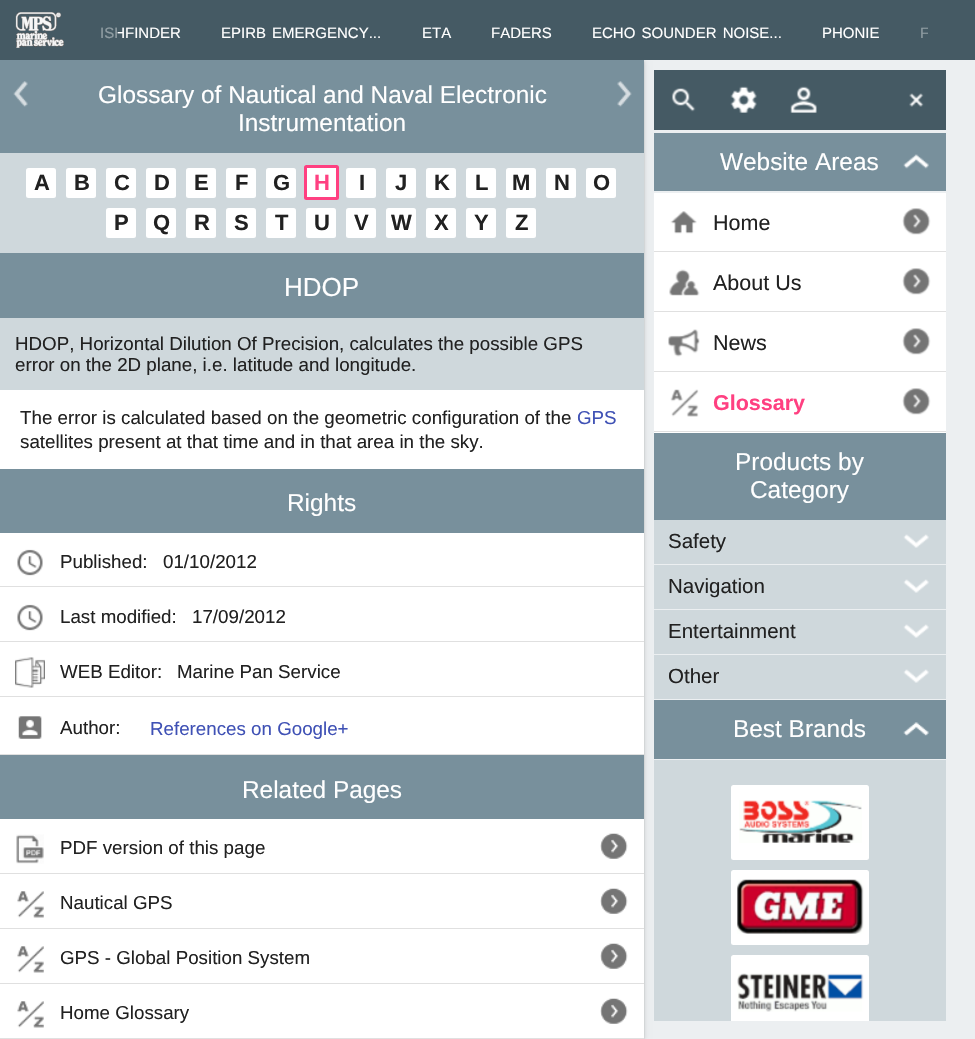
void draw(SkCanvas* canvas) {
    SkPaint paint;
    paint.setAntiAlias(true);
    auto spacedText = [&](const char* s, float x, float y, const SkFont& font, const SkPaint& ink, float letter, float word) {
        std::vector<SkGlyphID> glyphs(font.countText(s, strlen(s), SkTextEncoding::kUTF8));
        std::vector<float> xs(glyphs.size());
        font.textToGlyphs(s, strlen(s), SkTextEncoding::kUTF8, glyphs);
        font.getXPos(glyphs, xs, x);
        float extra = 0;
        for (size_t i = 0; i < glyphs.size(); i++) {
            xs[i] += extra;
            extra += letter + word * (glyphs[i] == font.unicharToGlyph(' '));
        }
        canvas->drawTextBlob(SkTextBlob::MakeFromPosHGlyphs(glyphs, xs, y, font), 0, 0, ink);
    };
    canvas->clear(0xFFECEFF1);
    paint.setColor(0x1F000000);
    paint.setMaskFilter(SkMaskFilter::MakeBlur(kNormal_SkBlurStyle, 3));
    canvas->drawRect(SkRect::MakeXYWH(0, 61, 644, 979), paint);
    paint.setMaskFilter(nullptr);
    paint.setColor(0x29000000);
    paint.setMaskFilter(SkMaskFilter::MakeBlur(kNormal_SkBlurStyle, 1));
    canvas->drawRect(SkRect::MakeXYWH(0, 61, 644, 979), paint);
    paint.setMaskFilter(nullptr);
    paint.setColor(0xFF455A64);
    canvas->drawRect(SkRect::MakeXYWH(0, 0, 975, 60), paint);
    canvas->drawImageRect(SkImages::DeferredFromEncodedData(SkData::MakeFromFileName("img1.png")), SkRect::MakeXYWH(15, 12, 49, 36), SkSamplingOptions());
    SkFont font1(fontMgr->matchFamilyStyle("Liberation Sans", SkFontStyle::Normal()), 15);
    font1.setSubpixel(true);
    paint.setColor(0xFFFFFFFF);
    canvas->drawString("ISHFINDER", 100, 38, font1, paint);
    canvas->drawString("EPIRB", 221, 38, font1, paint);
    canvas->drawString("EMERGENCY...", 272, 38, font1, paint);
    canvas->drawString("ETA", 422, 38, font1, paint);
    canvas->drawString("FADERS", 491, 38, font1, paint);
    spacedText("ECHO SOUNDER NOISE...", 592, 38, font1, paint, 0, 2);
    canvas->drawString("PHONIE", 822, 38, font1, paint);
    canvas->save();
    canvas->clipRect(SkRect::MakeXYWH(900, 1, 28, 55));
    paint.setColor(0xFF8F9CA2);
    canvas->drawString("F", 920, 38, font1, paint);
    canvas->restore();
    paint.setColor(0x99455A64);
    canvas->drawRect(SkRect::MakeXYWH(101, 27, 17, 12), paint);
    paint.setColor(0xFFFFFFFF);
    canvas->drawRect(SkRect::MakeXYWH(0, 390, 644, 648), paint);
    paint.setColor(0xFF78909C);
    canvas->drawRect(SkRect::MakeXYWH(0, 60, 644, 93), paint);
    canvas->drawImageRect(SkImages::DeferredFromEncodedData(SkData::MakeFromFileName("img2.png")), SkRect::MakeXYWH(13, 81, 15, 26), SkSamplingOptions());
    canvas->drawImageRect(SkImages::DeferredFromEncodedData(SkData::MakeFromFileName("img3.png")), SkRect::MakeXYWH(617, 81, 15, 26), SkSamplingOptions());
    SkFont font2(fontMgr->matchFamilyStyle("Liberation Sans", SkFontStyle::Normal()), 24.4f);
    font2.setSubpixel(true);
    paint.setColor(0xFFFFFFFF);
    canvas->drawString("Glossary of Nautical and Naval Electronic", 98, 103, font2, paint);
    canvas->drawString("Instrumentation", 238, 131, font2, paint);
    paint.setColor(0xFFCFD8DC);
    canvas->drawRect(SkRect::MakeXYWH(0, 153, 644, 100), paint);
    paint.setColor(0xFFFFFFFF);
    canvas->drawRoundRect(SkRect::MakeXYWH(26, 168, 30, 30), 2.5f, 2.5f, paint);
    SkFont font3(fontMgr->matchFamilyStyle("Liberation Sans", SkFontStyle::Bold()), 22);
    font3.setSubpixel(true);
    paint.setColor(0xFF212121);
    canvas->drawString("A", 34, 190, font3, paint);
    paint.setColor(0xFFFFFFFF);
    canvas->drawRoundRect(SkRect::MakeXYWH(66, 168, 30, 30), 2.5f, 2.5f, paint);
    paint.setColor(0xFF212121);
    canvas->drawString("B", 74, 190, font3, paint);
    paint.setColor(0xFFFFFFFF);
    canvas->drawRoundRect(SkRect::MakeXYWH(106, 168, 30, 30), 2.5f, 2.5f, paint);
    paint.setColor(0xFF212121);
    canvas->drawString("C", 114, 190, font3, paint);
    paint.setColor(0xFFFFFFFF);
    canvas->drawRoundRect(SkRect::MakeXYWH(146, 168, 30, 30), 2.5f, 2.5f, paint);
    paint.setColor(0xFF212121);
    canvas->drawString("D", 154, 190, font3, paint);
    paint.setColor(0xFFFFFFFF);
    canvas->drawRoundRect(SkRect::MakeXYWH(186, 168, 30, 30), 2.5f, 2.5f, paint);
    paint.setColor(0xFF212121);
    canvas->drawString("E", 194, 190, font3, paint);
    paint.setColor(0xFFFFFFFF);
    canvas->drawRoundRect(SkRect::MakeXYWH(226, 168, 30, 30), 2.5f, 2.5f, paint);
    paint.setColor(0xFF212121);
    canvas->drawString("F", 235, 190, font3, paint);
    paint.setColor(0xFFFFFFFF);
    canvas->drawRoundRect(SkRect::MakeXYWH(266, 168, 30, 30), 2.5f, 2.5f, paint);
    paint.setColor(0xFF212121);
    canvas->drawString("G", 273, 190, font3, paint);
    paint.setColor(0xFFFFFFFF);
    canvas->drawRoundRect(SkRect::MakeXYWH(305.5f, 166.5f, 32, 32), 1, 1, paint);
    paint.setStyle(SkPaint::kStroke_Style);
    paint.setStrokeWidth(3);
    paint.setColor(0xFFFF4081);
    canvas->drawRoundRect(SkRect::MakeXYWH(305.5f, 166.5f, 32, 32), 1, 1, paint);
    paint.setStyle(SkPaint::kFill_Style);
    canvas->drawString("H", 314, 190, font3, paint);
    paint.setColor(0xFFFFFFFF);
    canvas->drawRoundRect(SkRect::MakeXYWH(346, 168, 30, 30), 2.5f, 2.5f, paint);
    paint.setColor(0xFF212121);
    canvas->drawString("I", 359, 190, font3, paint);
    paint.setColor(0xFFFFFFFF);
    canvas->drawRoundRect(SkRect::MakeXYWH(386, 168, 30, 30), 2.5f, 2.5f, paint);
    paint.setColor(0xFF212121);
    canvas->drawString("J", 395, 190, font3, paint);
    paint.setColor(0xFFFFFFFF);
    canvas->drawRoundRect(SkRect::MakeXYWH(426, 168, 30, 30), 2.5f, 2.5f, paint);
    paint.setColor(0xFF212121);
    canvas->drawString("K", 434, 190, font3, paint);
    paint.setColor(0xFFFFFFFF);
    canvas->drawRoundRect(SkRect::MakeXYWH(466, 168, 30, 30), 2.5f, 2.5f, paint);
    paint.setColor(0xFF212121);
    canvas->drawString("L", 475, 190, font3, paint);
    paint.setColor(0xFFFFFFFF);
    canvas->drawRoundRect(SkRect::MakeXYWH(506, 168, 30, 30), 2.5f, 2.5f, paint);
    paint.setColor(0xFF212121);
    canvas->drawString("M", 512, 190, font3, paint);
    paint.setColor(0xFFFFFFFF);
    canvas->drawRoundRect(SkRect::MakeXYWH(546, 168, 30, 30), 2.5f, 2.5f, paint);
    paint.setColor(0xFF212121);
    canvas->drawString("N", 554, 190, font3, paint);
    paint.setColor(0xFFFFFFFF);
    canvas->drawRoundRect(SkRect::MakeXYWH(586, 168, 30, 30), 2.5f, 2.5f, paint);
    paint.setColor(0xFF212121);
    canvas->drawString("O", 593, 190, font3, paint);
    paint.setColor(0xFFFFFFFF);
    canvas->drawRoundRect(SkRect::MakeXYWH(106, 208, 30, 30), 2.5f, 2.5f, paint);
    paint.setColor(0xFF212121);
    canvas->drawString("P", 114, 230, font3, paint);
    paint.setColor(0xFFFFFFFF);
    canvas->drawRoundRect(SkRect::MakeXYWH(146, 208, 30, 30), 2.5f, 2.5f, paint);
    paint.setColor(0xFF212121);
    canvas->drawString("Q", 153, 230, font3, paint);
    paint.setColor(0xFFFFFFFF);
    canvas->drawRoundRect(SkRect::MakeXYWH(186, 208, 30, 30), 2.5f, 2.5f, paint);
    paint.setColor(0xFF212121);
    canvas->drawString("R", 194, 230, font3, paint);
    paint.setColor(0xFFFFFFFF);
    canvas->drawRoundRect(SkRect::MakeXYWH(226, 208, 30, 30), 2.5f, 2.5f, paint);
    paint.setColor(0xFF212121);
    canvas->drawString("S", 234, 230, font3, paint);
    paint.setColor(0xFFFFFFFF);
    canvas->drawRoundRect(SkRect::MakeXYWH(266, 208, 30, 30), 2.5f, 2.5f, paint);
    paint.setColor(0xFF212121);
    canvas->drawString("T", 275, 230, font3, paint);
    paint.setColor(0xFFFFFFFF);
    canvas->drawRoundRect(SkRect::MakeXYWH(306, 208, 30, 30), 2.5f, 2.5f, paint);
    paint.setColor(0xFF212121);
    canvas->drawString("U", 314, 230, font3, paint);
    paint.setColor(0xFFFFFFFF);
    canvas->drawRoundRect(SkRect::MakeXYWH(346, 208, 30, 30), 2.5f, 2.5f, paint);
    paint.setColor(0xFF212121);
    canvas->drawString("V", 354, 230, font3, paint);
    paint.setColor(0xFFFFFFFF);
    canvas->drawRoundRect(SkRect::MakeXYWH(386, 208, 30, 30), 2.5f, 2.5f, paint);
    paint.setColor(0xFF212121);
    canvas->drawString("W", 391, 230, font3, paint);
    paint.setColor(0xFFFFFFFF);
    canvas->drawRoundRect(SkRect::MakeXYWH(426, 208, 30, 30), 2.5f, 2.5f, paint);
    paint.setColor(0xFF212121);
    canvas->drawString("X", 434, 230, font3, paint);
    paint.setColor(0xFFFFFFFF);
    canvas->drawRoundRect(SkRect::MakeXYWH(466, 208, 30, 30), 2.5f, 2.5f, paint);
    paint.setColor(0xFF212121);
    canvas->drawString("Y", 474, 230, font3, paint);
    paint.setColor(0xFFFFFFFF);
    canvas->drawRoundRect(SkRect::MakeXYWH(506, 208, 30, 30), 2.5f, 2.5f, paint);
    paint.setColor(0xFF212121);
    canvas->drawString("Z", 515, 230, font3, paint);
    paint.setColor(0xFF78909C);
    canvas->drawRect(SkRect::MakeXYWH(0, 253, 644, 65), paint);
    SkFont font4(fontMgr->matchFamilyStyle("Liberation Sans", SkFontStyle::Normal()), 26);
    font4.setSubpixel(true);
    paint.setColor(0xFFFFFFFF);
    canvas->drawString("HDOP", 284, 296, font4, paint);
    paint.setColor(0xFFCFD8DC);
    canvas->drawRect(SkRect::MakeXYWH(0, 318, 644, 72), paint);
    SkFont font5(fontMgr->matchFamilyStyle("Liberation Sans", SkFontStyle::Normal()), 18.75f);
    font5.setSubpixel(true);
    paint.setColor(0xFF212121);
    canvas->drawString("HDOP, Horizontal Dilution Of Precision, calculates the possible GPS", 15, 350, font5, paint);
    canvas->drawString("error on the 2D plane, i.e. latitude and longitude.", 15, 371, font5, paint);
    canvas->drawString("The error is calculated based on the geometric configuration of the", 20, 424, font5, paint);
    paint.setColor(0xFF3F51B5);
    canvas->drawString("GPS", 577, 424, font5, paint);
    paint.setColor(0xFF212121);
    canvas->drawString("satellites present at that time and in that area in the sky.", 20, 448, font5, paint);
    paint.setColor(0xFF78909C);
    canvas->drawRect(SkRect::MakeXYWH(0, 469, 644, 64), paint);
    paint.setColor(0xFFFFFFFF);
    canvas->drawString("Rights", 287, 511, font2, paint);
    paint.setColor(0xFFE0E0E0);
    canvas->drawRect(SkRect::MakeXYWH(0, 586, 644, 1), paint);
    canvas->drawImageRect(SkImages::DeferredFromEncodedData(SkData::MakeFromFileName("img4.png")), SkRect::MakeXYWH(17, 549, 26, 27), SkSamplingOptions());
    paint.setColor(0xFF212121);
    canvas->drawString("Published:", 60, 568, font5, paint);
    canvas->drawString("01/10/2012", 163, 568, font5, paint);
    paint.setColor(0xFFE0E0E0);
    canvas->drawRect(SkRect::MakeXYWH(0, 641, 644, 1), paint);
    canvas->drawImageRect(SkImages::DeferredFromEncodedData(SkData::MakeFromFileName("img4.png")), SkRect::MakeXYWH(17, 604, 26, 27), SkSamplingOptions());
    paint.setColor(0xFF212121);
    canvas->drawString("Last modified:", 60, 623, font5, paint);
    canvas->drawString("17/09/2012", 192, 623, font5, paint);
    paint.setColor(0xFFE0E0E0);
    canvas->drawRect(SkRect::MakeXYWH(0, 696, 644, 1), paint);
    canvas->drawImageRect(SkImages::DeferredFromEncodedData(SkData::MakeFromFileName("img5.png")), SkRect::MakeXYWH(15, 657, 30, 31), SkSamplingOptions());
    paint.setColor(0xFF212121);
    canvas->drawString("WEB Editor:", 60, 678, font5, paint);
    canvas->drawString("Marine Pan Service", 177, 678, font5, paint);
    paint.setColor(0xFFE0E0E0);
    canvas->drawRect(SkRect::MakeXYWH(0, 754, 644, 1), paint);
    canvas->drawImageRect(SkImages::DeferredFromEncodedData(SkData::MakeFromFileName("img6.png")), SkRect::MakeXYWH(18, 716, 24, 23), SkSamplingOptions());
    paint.setColor(0xFF212121);
    canvas->drawString("Author:", 60, 734, font5, paint);
    paint.setColor(0xFF3F51B5);
    canvas->drawString("References on Google+", 150, 735, font5, paint);
    paint.setColor(0xFF78909C);
    canvas->drawRect(SkRect::MakeXYWH(0, 755, 644, 64), paint);
    paint.setColor(0xFFFFFFFF);
    canvas->drawString("Related Pages", 242, 798, font2, paint);
    paint.setColor(0xFFE0E0E0);
    canvas->drawRect(SkRect::MakeXYWH(0, 873, 644, 1), paint);
    canvas->drawImageRect(SkImages::DeferredFromEncodedData(SkData::MakeFromFileName("img7.png")), SkRect::MakeXYWH(16, 834, 28, 30), SkSamplingOptions());
    paint.setColor(0xFF212121);
    canvas->drawString("PDF version of this page", 60, 854, font5, paint);
    canvas->drawImageRect(SkImages::DeferredFromEncodedData(SkData::MakeFromFileName("img8.png")), SkRect::MakeXYWH(600, 833, 28, 26), SkSamplingOptions());
    paint.setColor(0xFFE0E0E0);
    canvas->drawRect(SkRect::MakeXYWH(0, 928, 644, 1), paint);
    canvas->drawImageRect(SkImages::DeferredFromEncodedData(SkData::MakeFromFileName("img9.png")), SkRect::MakeXYWH(17, 891, 27, 27), SkSamplingOptions());
    paint.setColor(0xFF212121);
    canvas->drawString("Nautical GPS", 60, 909, font5, paint);
    canvas->drawImageRect(SkImages::DeferredFromEncodedData(SkData::MakeFromFileName("img8.png")), SkRect::MakeXYWH(600, 888, 28, 26), SkSamplingOptions());
    paint.setColor(0xFFE0E0E0);
    canvas->drawRect(SkRect::MakeXYWH(0, 983, 644, 1), paint);
    canvas->drawImageRect(SkImages::DeferredFromEncodedData(SkData::MakeFromFileName("img9.png")), SkRect::MakeXYWH(17, 946, 27, 27), SkSamplingOptions());
    paint.setColor(0xFF212121);
    canvas->drawString("GPS - Global Position System", 60, 964, font5, paint);
    canvas->drawImageRect(SkImages::DeferredFromEncodedData(SkData::MakeFromFileName("img8.png")), SkRect::MakeXYWH(600, 943, 28, 26), SkSamplingOptions());
    paint.setColor(0xFFE0E0E0);
    canvas->drawRect(SkRect::MakeXYWH(0, 1038, 644, 1), paint);
    canvas->drawImageRect(SkImages::DeferredFromEncodedData(SkData::MakeFromFileName("img9.png")), SkRect::MakeXYWH(17, 1001, 27, 27), SkSamplingOptions());
    paint.setColor(0xFF212121);
    canvas->drawString("Home Glossary", 60, 1019, font5, paint);
    canvas->drawImageRect(SkImages::DeferredFromEncodedData(SkData::MakeFromFileName("img8.png")), SkRect::MakeXYWH(600, 998, 28, 26), SkSamplingOptions());
    paint.setColor(0xFF455A64);
    canvas->drawRect(SkRect::MakeXYWH(654, 70, 292, 60), paint);
    canvas->drawImageRect(SkImages::DeferredFromEncodedData(SkData::MakeFromFileName("img10.png")), SkRect::MakeXYWH(671, 88, 25, 24), SkSamplingOptions());
    canvas->drawImageRect(SkImages::DeferredFromEncodedData(SkData::MakeFromFileName("img11.png")), SkRect::MakeXYWH(730, 86, 27, 27), SkSamplingOptions());
    canvas->drawImageRect(SkImages::DeferredFromEncodedData(SkData::MakeFromFileName("img12.png")), SkRect::MakeXYWH(790, 86, 27, 27), SkSamplingOptions());
    canvas->drawImageRect(SkImages::DeferredFromEncodedData(SkData::MakeFromFileName("img13.png")), SkRect::MakeXYWH(909, 93, 15, 14), SkSamplingOptions());
    paint.setColor(0xFF78909C);
    canvas->drawRect(SkRect::MakeXYWH(654, 133, 292, 58), paint);
    paint.setColor(0xFFFFFFFF);
    canvas->drawString("Website Areas", 720, 170, font2, paint);
    canvas->drawImageRect(SkImages::DeferredFromEncodedData(SkData::MakeFromFileName("img14.png")), SkRect::MakeXYWH(903, 154, 26, 15), SkSamplingOptions());
    canvas->drawRect(SkRect::MakeXYWH(654, 193, 292, 240), paint);
    paint.setColor(0xFFE0E0E0);
    canvas->drawRect(SkRect::MakeXYWH(654, 251, 292, 1), paint);
    canvas->drawImageRect(SkImages::DeferredFromEncodedData(SkData::MakeFromFileName("img15.png")), SkRect::MakeXYWH(670, 211, 27, 23), SkSamplingOptions());
    SkFont font6(fontMgr->matchFamilyStyle("Liberation Sans", SkFontStyle::Normal()), 21.5f);
    font6.setSubpixel(true);
    paint.setColor(0xFF212121);
    canvas->drawString("Home", 713, 230, font6, paint);
    canvas->drawImageRect(SkImages::DeferredFromEncodedData(SkData::MakeFromFileName("img16.png")), SkRect::MakeXYWH(902, 208, 29, 27), SkSamplingOptions());
    paint.setColor(0xFFE0E0E0);
    canvas->drawRect(SkRect::MakeXYWH(654, 311, 292, 1), paint);
    canvas->drawImageRect(SkImages::DeferredFromEncodedData(SkData::MakeFromFileName("img17.png")), SkRect::MakeXYWH(669, 269, 31, 27), SkSamplingOptions());
    paint.setColor(0xFF212121);
    canvas->drawString("About Us", 713, 290, font6, paint);
    canvas->drawImageRect(SkImages::DeferredFromEncodedData(SkData::MakeFromFileName("img16.png")), SkRect::MakeXYWH(902, 268, 29, 27), SkSamplingOptions());
    paint.setColor(0xFFE0E0E0);
    canvas->drawRect(SkRect::MakeXYWH(654, 371, 292, 1), paint);
    canvas->drawImageRect(SkImages::DeferredFromEncodedData(SkData::MakeFromFileName("img18.png")), SkRect::MakeXYWH(668, 329, 32, 28), SkSamplingOptions());
    paint.setColor(0xFF212121);
    canvas->drawString("News", 713, 350, font6, paint);
    canvas->drawImageRect(SkImages::DeferredFromEncodedData(SkData::MakeFromFileName("img16.png")), SkRect::MakeXYWH(902, 328, 29, 27), SkSamplingOptions());
    paint.setColor(0xFFE0E0E0);
    canvas->drawRect(SkRect::MakeXYWH(654, 431, 292, 1), paint);
    canvas->drawImageRect(SkImages::DeferredFromEncodedData(SkData::MakeFromFileName("img19.png")), SkRect::MakeXYWH(670, 389, 29, 28), SkSamplingOptions());
    SkFont font7(fontMgr->matchFamilyStyle("Liberation Sans", SkFontStyle::Bold()), 21.5f);
    font7.setSubpixel(true);
    paint.setColor(0xFFFF4081);
    canvas->drawString("Glossary", 713, 410, font7, paint);
    canvas->drawImageRect(SkImages::DeferredFromEncodedData(SkData::MakeFromFileName("img16.png")), SkRect::MakeXYWH(902, 388, 29, 27), SkSamplingOptions());
    paint.setColor(0xFF78909C);
    canvas->drawRect(SkRect::MakeXYWH(654, 433, 292, 87), paint);
    paint.setColor(0xFFFFFFFF);
    canvas->drawString("Products by", 735, 470, font2, paint);
    canvas->drawString("Category", 750, 498, font2, paint);
    paint.setColor(0xFFCFD8DC);
    canvas->drawRect(SkRect::MakeXYWH(654, 520, 292, 44), paint);
    SkFont font8(fontMgr->matchFamilyStyle("Liberation Sans", SkFontStyle::Normal()), 20.5f);
    font8.setSubpixel(true);
    paint.setColor(0xFF212121);
    canvas->drawString("Safety", 668, 548, font8, paint);
    canvas->drawImageRect(SkImages::DeferredFromEncodedData(SkData::MakeFromFileName("img20.png")), SkRect::MakeXYWH(903, 534, 26, 14), SkSamplingOptions());
    paint.setColor(0xFFCFD8DC);
    canvas->drawRect(SkRect::MakeXYWH(654, 565, 292, 44), paint);
    paint.setColor(0xFF212121);
    canvas->drawString("Navigation", 668, 593, font8, paint);
    canvas->drawImageRect(SkImages::DeferredFromEncodedData(SkData::MakeFromFileName("img20.png")), SkRect::MakeXYWH(903, 579, 26, 14), SkSamplingOptions());
    paint.setColor(0xFFCFD8DC);
    canvas->drawRect(SkRect::MakeXYWH(654, 610, 292, 44), paint);
    paint.setColor(0xFF212121);
    canvas->drawString("Entertainment", 668, 638, font8, paint);
    canvas->drawImageRect(SkImages::DeferredFromEncodedData(SkData::MakeFromFileName("img20.png")), SkRect::MakeXYWH(903, 624, 26, 14), SkSamplingOptions());
    paint.setColor(0xFFCFD8DC);
    canvas->drawRect(SkRect::MakeXYWH(654, 655, 292, 44), paint);
    paint.setColor(0xFF212121);
    canvas->drawString("Other", 668, 683, font8, paint);
    canvas->drawImageRect(SkImages::DeferredFromEncodedData(SkData::MakeFromFileName("img20.png")), SkRect::MakeXYWH(903, 669, 26, 14), SkSamplingOptions());
    paint.setColor(0xFF78909C);
    canvas->drawRect(SkRect::MakeXYWH(654, 700, 292, 59), paint);
    paint.setColor(0xFFFFFFFF);
    canvas->drawString("Best Brands", 733, 737, font2, paint);
    canvas->drawImageRect(SkImages::DeferredFromEncodedData(SkData::MakeFromFileName("img21.png")), SkRect::MakeXYWH(903, 722, 26, 14), SkSamplingOptions());
    paint.setColor(0xFFCFD8DC);
    canvas->drawRect(SkRect::MakeXYWH(654, 760, 292, 261), paint);
    paint.setColor(0xFFFFFFFF);
    canvas->drawRoundRect(SkRect::MakeXYWH(731, 785, 138, 75), 2.5f, 2.5f, paint);
    canvas->drawImageRect(SkImages::DeferredFromEncodedData(SkData::MakeFromFileName("img22.png")), SkRect::MakeXYWH(739, 800, 123, 43), SkSamplingOptions());
    canvas->drawRoundRect(SkRect::MakeXYWH(731, 870, 138, 75), 2.5f, 2.5f, paint);
    canvas->drawImageRect(SkImages::DeferredFromEncodedData(SkData::MakeFromFileName("img23.png")), SkRect::MakeXYWH(737, 879, 127, 55), SkSamplingOptions());
    canvas->drawPath(SkPathBuilder().moveTo(733.5f, 955).lineTo(866.5f, 955).cubicTo(868, 955, 869, 956, 869, 957.5f).lineTo(869, 1021).lineTo(731, 1021).lineTo(731, 957.5f).cubicTo(731, 956, 732, 955, 733.5f, 955).close().detach(), paint);
    canvas->drawImageRect(SkImages::DeferredFromEncodedData(SkData::MakeFromFileName("img24.png")), SkRect::MakeXYWH(737, 973, 127, 39), SkSamplingOptions());
}
